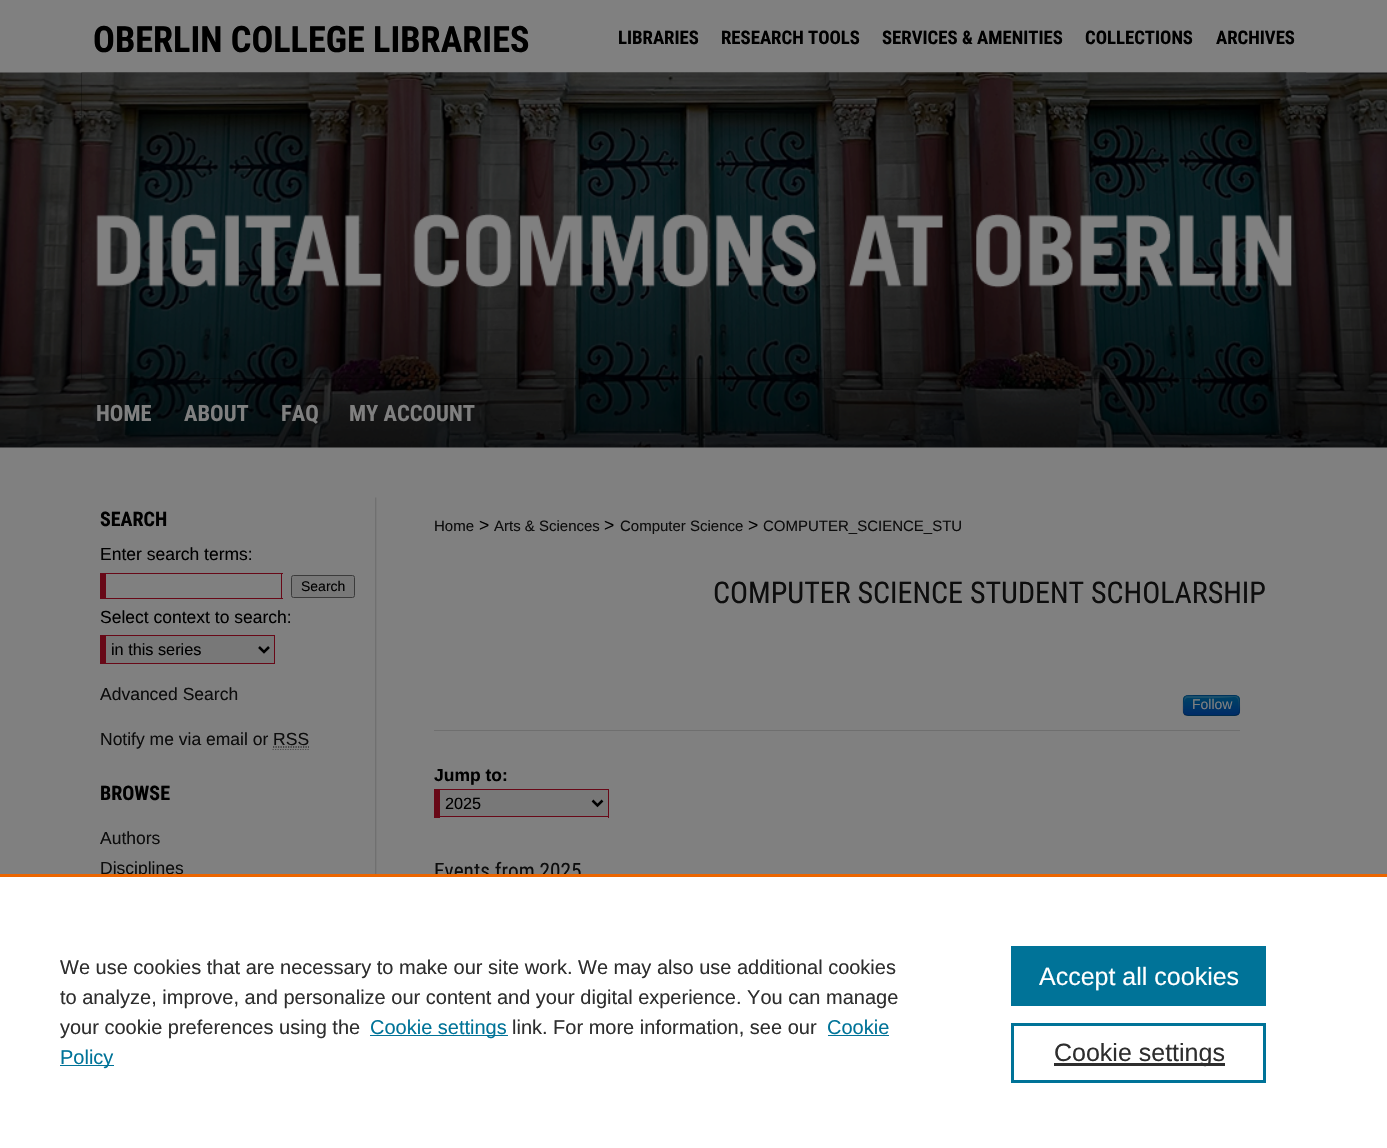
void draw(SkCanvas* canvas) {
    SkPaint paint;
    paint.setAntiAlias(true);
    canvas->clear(0xFF808080);
    canvas->drawImageRect(SkImages::DeferredFromEncodedData(SkData::MakeFromFileName("img1.png")), SkRect::MakeXYWH(0, 72, 1387, 376), SkSamplingOptions());
    SkFont font1(fontMgr->matchFamilyStyle("Roboto Condensed", SkFontStyle::Bold()), 36.25f);
    font1.setSubpixel(true);
    paint.setColor(0xFF000000);
    canvas->drawString("OBERLIN COLLEGE LIBRARIES", 93, 52, font1, paint);
    SkFont font2(fontMgr->matchFamilyStyle("Roboto Condensed", SkFontStyle::Bold()), 18.75f);
    font2.setSubpixel(true);
    canvas->drawString("LIBRARIES", 618, 44, font2, paint);
    canvas->drawString("RESEARCH TOOLS", 721, 44, font2, paint);
    canvas->drawString("SERVICES & AMENITIES", 882, 44, font2, paint);
    canvas->drawString("COLLECTIONS", 1085, 44, font2, paint);
    canvas->drawString("ARCHIVES", 1216, 44, font2, paint);
    canvas->drawRect(SkRect::MakeXYWH(81, 73, 1225, 306), paint);
    canvas->drawImageRect(SkImages::DeferredFromEncodedData(SkData::MakeFromFileName("img2.png")), SkRect::MakeXYWH(81, 72, 1226, 307), SkSamplingOptions());
    SkFont font3(fontMgr->matchFamilyStyle("Roboto Condensed", SkFontStyle::Bold()), 22.5f);
    font3.setSubpixel(true);
    paint.setColor(0xFF808080);
    canvas->drawString("HOME", 96, 421, font3, paint);
    canvas->drawString("ABOUT", 184, 421, font3, paint);
    canvas->drawString("FAQ", 281, 421, font3, paint);
    canvas->drawString("MY ACCOUNT", 349, 421, font3, paint);
    canvas->drawImageRect(SkImages::DeferredFromEncodedData(SkData::MakeFromFileName("img3.png")), SkRect::MakeXYWH(375, 497, 2, 377), SkSamplingOptions());
    SkFont font4(fontMgr->matchFamilyStyle("Roboto Condensed", SkFontStyle::Bold()), 20);
    font4.setSubpixel(true);
    paint.setColor(0xFF000000);
    canvas->drawString("SEARCH", 100, 526, font4, paint);
    SkFont font5(fontMgr->matchFamilyStyle("Liberation Sans", SkFontStyle::Normal()), 17.5f);
    font5.setSubpixel(true);
    canvas->drawString("Enter search terms:", 100, 560, font5, paint);
    paint.setColor(0xFF680817);
    canvas->drawRect(SkRect::MakeXYWH(100, 573, 183, 1), paint);
    canvas->drawRect(SkRect::MakeXYWH(281, 573, 1, 26), paint);
    canvas->drawRect(SkRect::MakeXYWH(100, 598, 183, 1), paint);
    canvas->drawRect(SkRect::MakeXYWH(100, 573, 6, 26), paint);
    paint.setColor(0xFF787878);
    canvas->drawRoundRect(SkRect::MakeXYWH(291.5f, 575.5f, 63, 22), 2, 2, paint);
    paint.setStyle(SkPaint::kStroke_Style);
    paint.setStrokeWidth(1);
    paint.setColor(0xFF3B3B3B);
    canvas->drawRoundRect(SkRect::MakeXYWH(291.5f, 575.5f, 63, 22), 2, 2, paint);
    SkFont font6(fontMgr->matchFamilyStyle("Liberation Sans", SkFontStyle::Normal()), 14);
    font6.setSubpixel(true);
    paint.setStyle(SkPaint::kFill_Style);
    paint.setColor(0xFF000000);
    canvas->drawString("Search", 301, 591, font6, paint);
    canvas->drawString("Select context to search:", 100, 623, font5, paint);
    paint.setColor(0xFF787878);
    canvas->drawRect(SkRect::MakeXYWH(106, 636, 168, 27), paint);
    paint.setColor(0xFF680817);
    canvas->drawRect(SkRect::MakeXYWH(100, 635, 175, 1), paint);
    canvas->drawRect(SkRect::MakeXYWH(274, 635, 1, 29), paint);
    canvas->drawRect(SkRect::MakeXYWH(100, 663, 175, 1), paint);
    canvas->drawRect(SkRect::MakeXYWH(100, 635, 6, 29), paint);
    paint.setStyle(SkPaint::kStroke_Style);
    paint.setStrokeWidth(2.5f);
    paint.setColor(0xFF000000);
    canvas->drawPath(SkPathBuilder().moveTo(259, 647).lineTo(264, 652).lineTo(269, 647).detach(), paint);
    SkFont font7(fontMgr->matchFamilyStyle("Liberation Sans", SkFontStyle::Normal()), 16.25f);
    font7.setSubpixel(true);
    paint.setStyle(SkPaint::kFill_Style);
    canvas->drawString("in this series", 111, 655, font7, paint);
    paint.setColor(0xFF0D0D0D);
    canvas->drawString("Advanced Search", 100, 700, font5, paint);
    canvas->drawString("Notify me via email or RSS", 100, 745, font5, paint);
    paint.setStyle(SkPaint::kStroke_Style);
    paint.setStrokeWidth(1.2f);
    paint.setPathEffect(SkDashPathEffect::Make({{1.25f, 1.25f}}, 0));
    canvas->drawPath(SkPathBuilder().moveTo(273, 747).lineTo(309, 747).detach(), paint);
    paint.setPathEffect(nullptr);
    paint.setColor(0xFF4D4D4D);
    paint.setPathEffect(SkDashPathEffect::Make({{1.25f, 1.25f}}, 0));
    canvas->drawPath(SkPathBuilder().moveTo(272.5f, 749.5f).lineTo(309, 749.5f).detach(), paint);
    paint.setPathEffect(nullptr);
    paint.setStyle(SkPaint::kFill_Style);
    paint.setColor(0xFF000000);
    canvas->drawString("BROWSE", 100, 800, font4, paint);
    paint.setColor(0xFF0D0D0D);
    canvas->drawString("Authors", 100, 844, font5, paint);
    canvas->drawString("Disciplines", 100, 874, font5, paint);
    SkFont font8(fontMgr->matchFamilyStyle("Liberation Sans", SkFontStyle::Normal()), 15);
    font8.setSubpixel(true);
    canvas->drawString("Home", 434, 531, font8, paint);
    paint.setColor(0xFF000000);
    canvas->drawString(">", 479, 531, font5, paint);
    paint.setColor(0xFF0D0D0D);
    canvas->drawString("Arts & Sciences", 494, 531, font8, paint);
    paint.setColor(0xFF000000);
    canvas->drawString(">", 604, 531, font5, paint);
    paint.setColor(0xFF0D0D0D);
    canvas->drawString("Computer Science", 620, 531, font8, paint);
    paint.setColor(0xFF000000);
    canvas->drawString(">", 748, 531, font5, paint);
    paint.setColor(0xFF0D0D0D);
    canvas->drawString("COMPUTER_SCIENCE_STU", 763, 531, font8, paint);
    SkFont font9(fontMgr->matchFamilyStyle("Roboto Condensed", SkFontStyle::Normal()), 30);
    font9.setSubpixel(true);
    canvas->drawString("COMPUTER SCIENCE STUDENT SCHOLARSHIP", 713, 603, font9, paint);
    paint.setColor(0xFF6F6F6F);
    canvas->drawRect(SkRect::MakeXYWH(434, 730, 806, 1), paint);
    paint.setColor(0xFF003A66);
    canvas->drawRoundRect(SkRect::MakeXYWH(1183, 695, 57, 21), 5, 5, paint);
    canvas->save();
    canvas->clipPath(SkPathBuilder().moveTo(1188, 695).lineTo(1235, 695).cubicTo(1238, 695, 1240, 697, 1240, 700).lineTo(1240, 711).cubicTo(1240, 714, 1238, 716, 1235, 716).lineTo(1188, 716).cubicTo(1185, 716, 1183, 714, 1183, 711).lineTo(1183, 700).cubicTo(1183, 697, 1185, 695, 1188, 695).close().detach(), true);
    {
        const SkColor colors[] = {0xFF004466, 0xFF002B66};
        const float stops[] = {0, 1};
        const SkPoint ends[] = {{1211, 696}, {1211, 715}};
        paint.setShader(SkGradientShader::MakeLinear(ends, colors, stops, 2, SkTileMode::kClamp));
        paint.setAlpha(255);
    }
    canvas->drawRect(SkRect::MakeXYWH(1183, 696, 57, 19), paint);
    canvas->restore();
    paint.setShader(nullptr);
    paint.setColor(0x33808080);
    canvas->drawPath(SkPathBuilder().moveTo(1188, 698).lineTo(1219, 698).cubicTo(1237, 698, 1239, 692, 1239, 711).cubicTo(1239, 707, 1241, 697, 1236, 696).lineTo(1196, 696).cubicTo(1186, 696, 1184, 694, 1184, 704).lineTo(1184, 713).cubicTo(1184, 709, 1182, 698, 1188, 698).close().detach(), paint);
    paint.setStyle(SkPaint::kStroke_Style);
    paint.setColor(0x40000000);
    canvas->drawPath(SkPathBuilder().moveTo(1238, 714.5f).cubicTo(1237.5f, 715, 1236, 715.5f, 1235, 715.5f).lineTo(1187.5f, 715.5f).cubicTo(1186.5f, 715.5f, 1185, 715, 1184.5f, 714.5f).detach(), paint);
    paint.setColor(0x1A000000);
    canvas->drawPath(SkPathBuilder().moveTo(1184.5f, 714.5f).cubicTo(1182, 712, 1183, 708.5f, 1183, 705.5f).cubicTo(1183, 694.5f, 1184, 695.5f, 1195.5f, 695.5f).lineTo(1227, 695.5f).cubicTo(1238.5f, 695.5f, 1239.5f, 694.5f, 1239.5f, 705.5f).cubicTo(1239.5f, 708.5f, 1240.5f, 712, 1238, 714.5f).detach(), paint);
    paint.setStyle(SkPaint::kFill_Style);
    paint.setColor(0xFF808080);
    canvas->drawString("Follow", 1192, 709, font6, paint);
    SkFont font10(fontMgr->matchFamilyStyle("Liberation Sans", SkFontStyle::Bold()), 17.5f);
    font10.setSubpixel(true);
    paint.setColor(0xFF000000);
    canvas->drawString("Jump to:", 434, 781, font10, paint);
    paint.setColor(0xFF787878);
    canvas->drawRect(SkRect::MakeXYWH(440, 790, 168, 26), paint);
    paint.setColor(0xFF680817);
    canvas->drawRect(SkRect::MakeXYWH(434, 789, 175, 1), paint);
    canvas->drawRect(SkRect::MakeXYWH(608, 789, 1, 29), paint);
    canvas->drawRect(SkRect::MakeXYWH(434, 816, 175, 1), paint);
    canvas->drawRect(SkRect::MakeXYWH(434, 789, 6, 29), paint);
    paint.setStyle(SkPaint::kStroke_Style);
    paint.setStrokeWidth(2.5f);
    paint.setColor(0xFF000000);
    canvas->drawPath(SkPathBuilder().moveTo(592.5f, 800.5f).lineTo(597.5f, 805.5f).lineTo(602.5f, 800.5f).detach(), paint);
    paint.setStyle(SkPaint::kFill_Style);
    canvas->drawString("2025", 445, 809, font7, paint);
    SkFont font11(fontMgr->matchFamilyStyle("Roboto Condensed", SkFontStyle::Normal()), 21.25f);
    font11.setSubpixel(true);
    paint.setColor(0xFF0D0D0D);
    canvas->drawString("Events from 2025", 434, 878, font11, paint);
    paint.setColor(0xFFFFFFFF);
    canvas->drawRect(SkRect::MakeXYWH(0, 877, 1387, 271), paint);
    paint.setColor(0xFFEB6500);
    canvas->drawRect(SkRect::MakeXYWH(0, 874, 1387, 3), paint);
    SkFont font12(fontMgr->matchFamilyStyle("Liberation Sans", SkFontStyle::Normal()), 20);
    font12.setSubpixel(true);
    paint.setColor(0xFF2E2E2E);
    canvas->drawString("We use cookies that are necessary to make our site work. We may also use additional cookies", 60, 974, font12, paint);
    canvas->drawString("to analyze, improve, and personalize our content and your digital experience. You can manage", 60, 1004, font12, paint);
    canvas->drawString("your cookie preferences using the", 60, 1034, font12, paint);
    paint.setColor(0xFF007398);
    canvas->drawRect(SkRect::MakeXYWH(370, 1035, 138, 1), paint);
    canvas->drawString("Cookie settings", 370, 1034, font12, paint);
    paint.setColor(0xFF2E2E2E);
    canvas->drawString("link. For more information, see our", 512, 1034, font12, paint);
    paint.setColor(0xFF007398);
    canvas->drawString("Cookie", 827, 1034, font12, paint);
    canvas->drawRect(SkRect::MakeXYWH(828, 1035, 61, 1), paint);
    canvas->drawRect(SkRect::MakeXYWH(60, 1065, 54, 1), paint);
    canvas->drawString("Policy", 60, 1064, font12, paint);
    canvas->drawRect(SkRect::MakeXYWH(1011, 946, 255, 60), paint);
    SkFont font13(fontMgr->matchFamilyStyle("Liberation Sans", SkFontStyle::Normal()), 25);
    font13.setSubpixel(true);
    paint.setColor(0xFFFFFFFF);
    canvas->drawString("Accept all cookies", 1039, 985, font13, paint);
    paint.setStyle(SkPaint::kStroke_Style);
    paint.setStrokeWidth(3);
    paint.setColor(0xFF007398);
    canvas->drawRect(SkRect::MakeXYWH(1012.5f, 1024.5f, 252, 57), paint);
    paint.setStyle(SkPaint::kFill_Style);
    paint.setColor(0xFF2E2E2E);
    canvas->drawRect(SkRect::MakeXYWH(1054, 1063, 171, 3), paint);
    canvas->drawString("Cookie settings", 1054, 1061, font13, paint);
}
